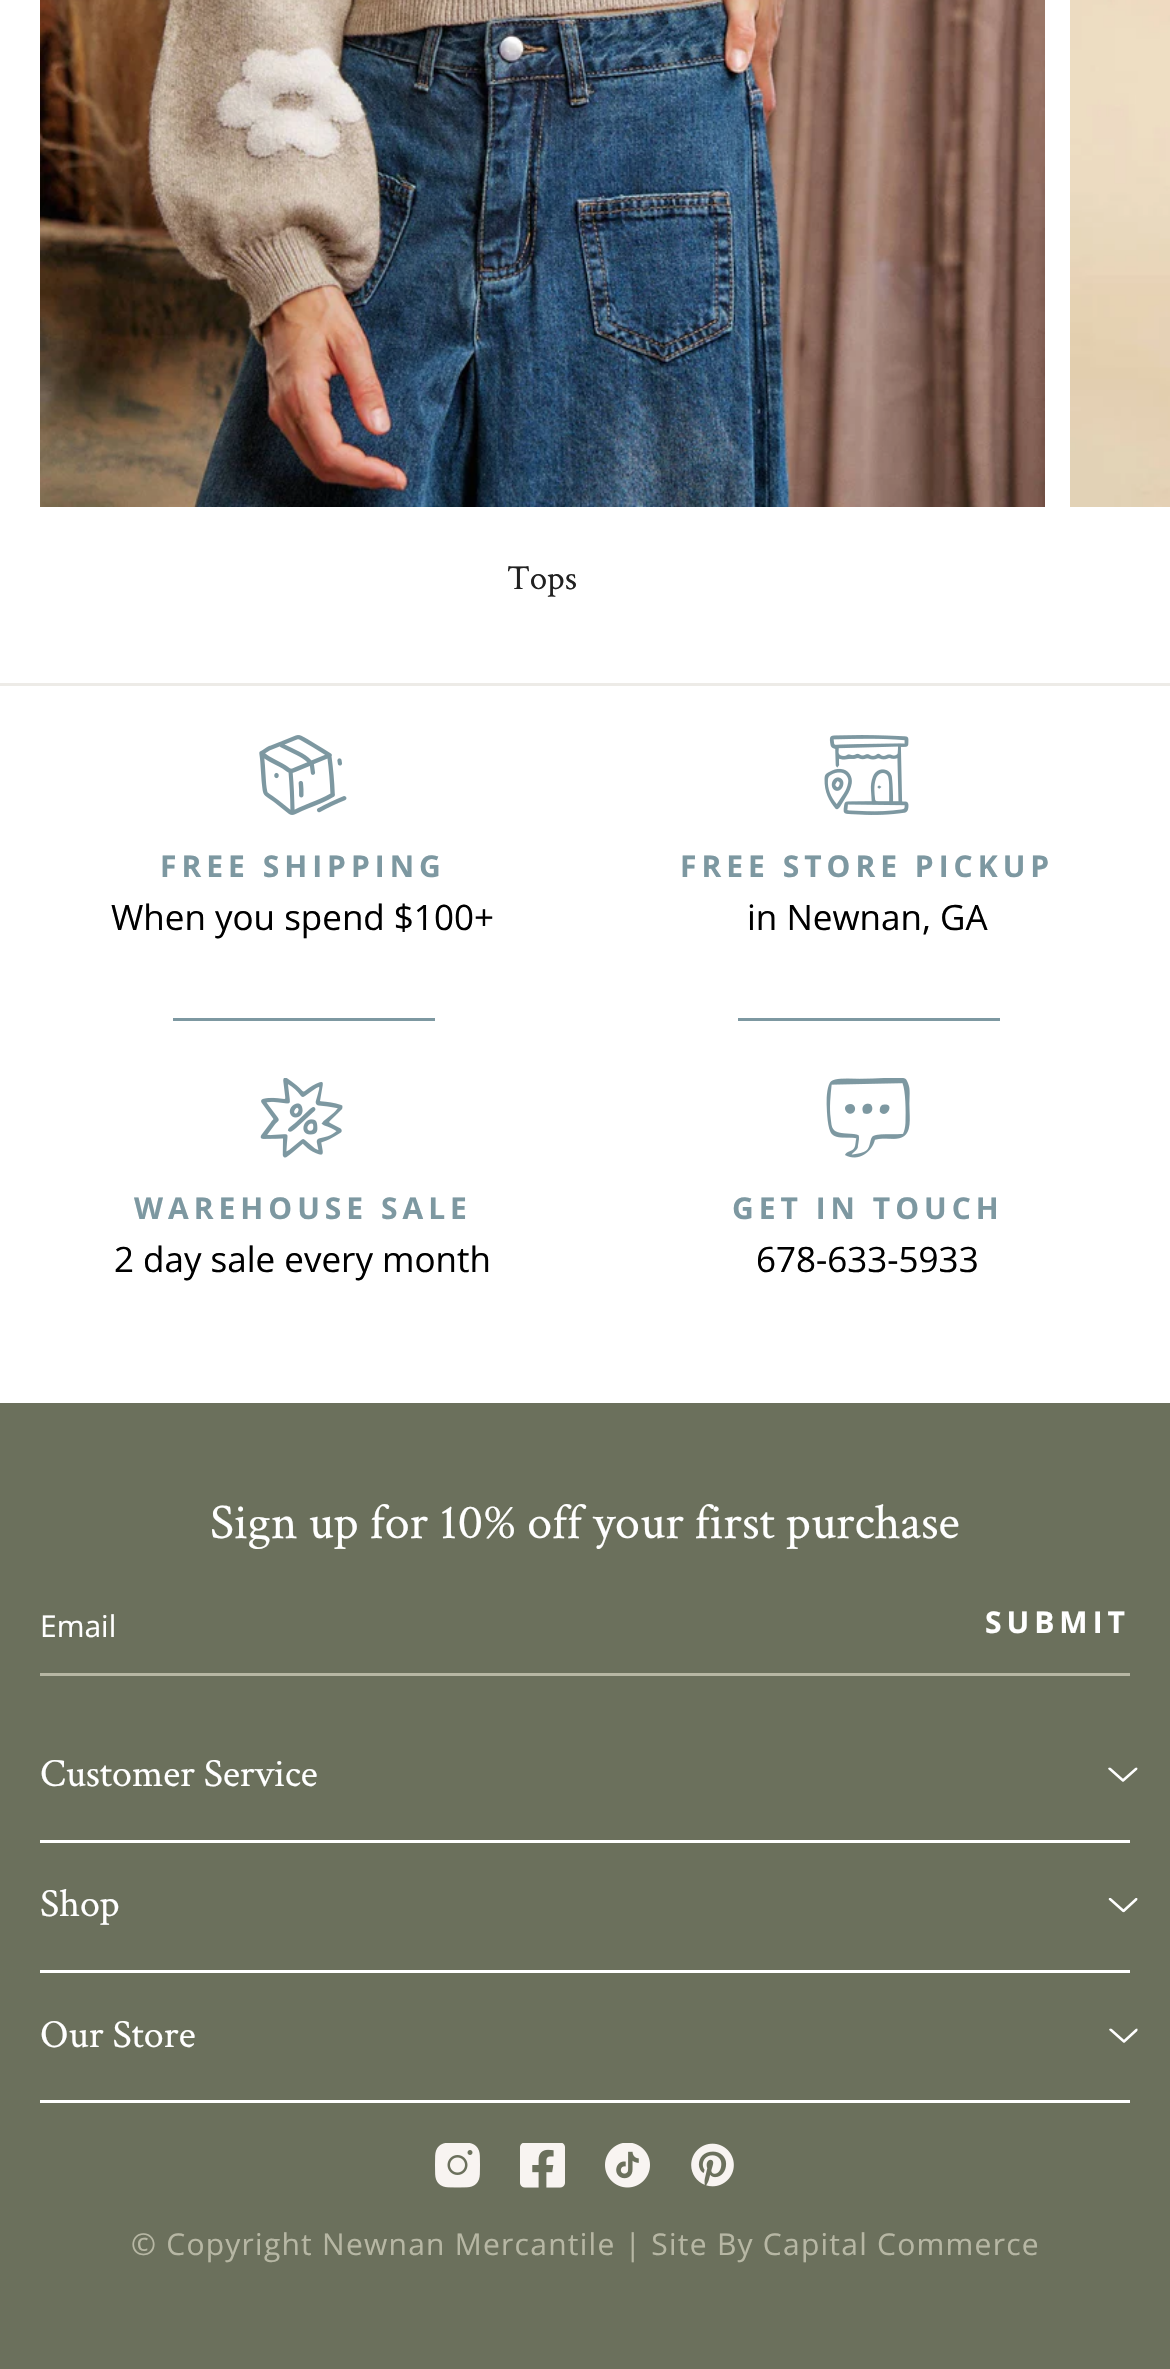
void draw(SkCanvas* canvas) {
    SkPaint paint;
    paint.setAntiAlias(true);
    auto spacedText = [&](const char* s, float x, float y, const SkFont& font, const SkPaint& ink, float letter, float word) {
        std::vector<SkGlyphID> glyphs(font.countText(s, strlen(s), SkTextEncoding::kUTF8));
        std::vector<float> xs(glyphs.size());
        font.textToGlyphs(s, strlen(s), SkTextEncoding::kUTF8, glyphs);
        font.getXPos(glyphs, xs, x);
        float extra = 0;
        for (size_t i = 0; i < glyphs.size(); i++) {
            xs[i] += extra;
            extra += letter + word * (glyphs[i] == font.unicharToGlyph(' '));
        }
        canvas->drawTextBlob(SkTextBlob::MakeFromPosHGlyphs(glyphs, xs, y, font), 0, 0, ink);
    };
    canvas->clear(0xFFFFFFFF);
    canvas->drawImageRect(SkImages::DeferredFromEncodedData(SkData::MakeFromFileName("img1.png")), SkRect::MakeXYWH(1070, 0, 100, 507), SkSamplingOptions());
    canvas->drawImageRect(SkImages::DeferredFromEncodedData(SkData::MakeFromFileName("img2.png")), SkRect::MakeXYWH(40, 0, 1005, 507), SkSamplingOptions());
    SkFont font1(fontMgr->matchFamilyStyle("Crimson Text", SkFontStyle::Normal()), 35);
    font1.setSubpixel(true);
    paint.setColor(0xFF212121);
    canvas->drawString("Tops", 507, 589, font1, paint);
    paint.setColor(0xFFEDEBE7);
    canvas->drawRect(SkRect::MakeXYWH(0, 683, 1170, 3), paint);
    canvas->drawImageRect(SkImages::DeferredFromEncodedData(SkData::MakeFromFileName("img3.png")), SkRect::MakeXYWH(259, 735, 88, 80), SkSamplingOptions());
    SkFont font2(fontMgr->matchFamilyStyle("Open Sans", SkFontStyle::Bold()), 30);
    font2.setSubpixel(true);
    paint.setColor(0xFF7D98A1);
    spacedText("FREE SHIPPING", 160, 877, font2, paint, 5, 0);
    SkFont font3(fontMgr->matchFamilyStyle("Open Sans", SkFontStyle::Normal()), 35);
    font3.setSubpixel(true);
    paint.setColor(0xFF000000);
    canvas->drawString("When you spend $100+", 111, 930, font3, paint);
    paint.setColor(0xFF7D98A1);
    canvas->drawRect(SkRect::MakeXYWH(173, 1018, 262, 3), paint);
    canvas->drawImageRect(SkImages::DeferredFromEncodedData(SkData::MakeFromFileName("img4.png")), SkRect::MakeXYWH(824, 735, 85, 80), SkSamplingOptions());
    spacedText("FREE STORE PICKUP", 680, 877, font2, paint, 5, 0);
    paint.setColor(0xFF000000);
    canvas->drawString("in Newnan, GA", 747, 930, font3, paint);
    paint.setColor(0xFF7D98A1);
    canvas->drawRect(SkRect::MakeXYWH(738, 1018, 262, 3), paint);
    canvas->drawImageRect(SkImages::DeferredFromEncodedData(SkData::MakeFromFileName("img5.png")), SkRect::MakeXYWH(260, 1078, 83, 80), SkSamplingOptions());
    spacedText("WAREHOUSE SALE", 134, 1219, font2, paint, 5, 0);
    paint.setColor(0xFF000000);
    canvas->drawString("2 day sale every month", 114, 1272, font3, paint);
    canvas->drawImageRect(SkImages::DeferredFromEncodedData(SkData::MakeFromFileName("img6.png")), SkRect::MakeXYWH(826, 1078, 84, 80), SkSamplingOptions());
    paint.setColor(0xFF7D98A1);
    spacedText("GET IN TOUCH", 732, 1219, font2, paint, 5, 0);
    paint.setColor(0xFF000000);
    canvas->drawString("678-633-5933", 756, 1272, font3, paint);
    paint.setColor(0xFF6B705C);
    canvas->drawRect(SkRect::MakeXYWH(0, 1403, 1170, 966), paint);
    SkFont font4(fontMgr->matchFamilyStyle("Crimson Text", SkFontStyle::Normal()), 50);
    font4.setSubpixel(true);
    paint.setColor(0xFFFFFFFF);
    canvas->drawString("Sign up for 10% off your first purchase", 210, 1538, font4, paint);
    paint.setColor(0xFFB7B7A4);
    canvas->drawRect(SkRect::MakeXYWH(40, 1673, 1090, 3), paint);
    SkFont font5(fontMgr->matchFamilyStyle("Open Sans", SkFontStyle::Normal()), 30);
    font5.setSubpixel(true);
    paint.setColor(0xFFFFFFFF);
    canvas->drawString("Email", 40, 1637, font5, paint);
    spacedText("SUBMIT", 985, 1633, font2, paint, 5, 0);
    SkFont font6(fontMgr->matchFamilyStyle("Crimson Text", SkFontStyle::Normal()), 40);
    font6.setSubpixel(true);
    canvas->drawString("Customer Service", 40, 1786, font6, paint);
    canvas->save();
    canvas->clipPath(SkPathBuilder().moveTo(1137.5f, 1767.5f).lineTo(1137.5f, 1782).lineTo(1108, 1782).lineTo(1108, 1767.5f).close().detach(), true);
    paint.setStyle(SkPaint::kStroke_Style);
    paint.setStrokeWidth(2.5f);
    paint.setStrokeCap(SkPaint::kRound_Cap);
    paint.setStrokeJoin(SkPaint::kRound_Join);
    canvas->drawPath(SkPathBuilder().moveTo(1136.5f, 1768.5f).lineTo(1123, 1780.5f).lineTo(1109.5f, 1768.5f).detach(), paint);
    canvas->restore();
    paint.setStyle(SkPaint::kFill_Style);
    canvas->drawRect(SkRect::MakeXYWH(40, 1840, 1090, 3), paint);
    canvas->drawString("Shop", 40, 1916, font6, paint);
    canvas->save();
    canvas->clipPath(SkPathBuilder().moveTo(1137.5f, 1898).lineTo(1137.5f, 1912.5f).lineTo(1108, 1912.5f).lineTo(1108, 1898).close().detach(), true);
    paint.setStyle(SkPaint::kStroke_Style);
    canvas->drawPath(SkPathBuilder().moveTo(1136.5f, 1899).lineTo(1123.5f, 1911).lineTo(1110, 1899).detach(), paint);
    canvas->restore();
    paint.setStyle(SkPaint::kFill_Style);
    canvas->drawRect(SkRect::MakeXYWH(40, 1970, 1090, 3), paint);
    canvas->drawString("Our Store", 40, 2047, font6, paint);
    canvas->save();
    canvas->clipPath(SkPathBuilder().moveTo(1137.5f, 2028.5f).lineTo(1137.5f, 2043).lineTo(1108, 2043).lineTo(1108, 2028.5f).close().detach(), true);
    paint.setStyle(SkPaint::kStroke_Style);
    canvas->drawPath(SkPathBuilder().moveTo(1137, 2029.5f).lineTo(1124, 2041.5f).lineTo(1110.5f, 2029.5f).detach(), paint);
    canvas->restore();
    paint.setStyle(SkPaint::kFill_Style);
    canvas->drawRect(SkRect::MakeXYWH(40, 2100, 1090, 3), paint);
    canvas->drawImageRect(SkImages::DeferredFromEncodedData(SkData::MakeFromFileName("img7.png")), SkRect::MakeXYWH(435, 2143, 45, 45), SkSamplingOptions());
    canvas->drawImageRect(SkImages::DeferredFromEncodedData(SkData::MakeFromFileName("img8.png")), SkRect::MakeXYWH(520, 2143, 45, 45), SkSamplingOptions());
    canvas->drawImageRect(SkImages::DeferredFromEncodedData(SkData::MakeFromFileName("img9.png")), SkRect::MakeXYWH(605, 2143, 45, 45), SkSamplingOptions());
    canvas->drawImageRect(SkImages::DeferredFromEncodedData(SkData::MakeFromFileName("img10.png")), SkRect::MakeXYWH(691, 2143, 43, 44), SkSamplingOptions());
    paint.setColor(0xFFB7B7A4);
    spacedText("© Copyright Newnan Mercantile | Site By Capital Commerce", 131, 2255, font5, paint, 1.25f, 0);
}
